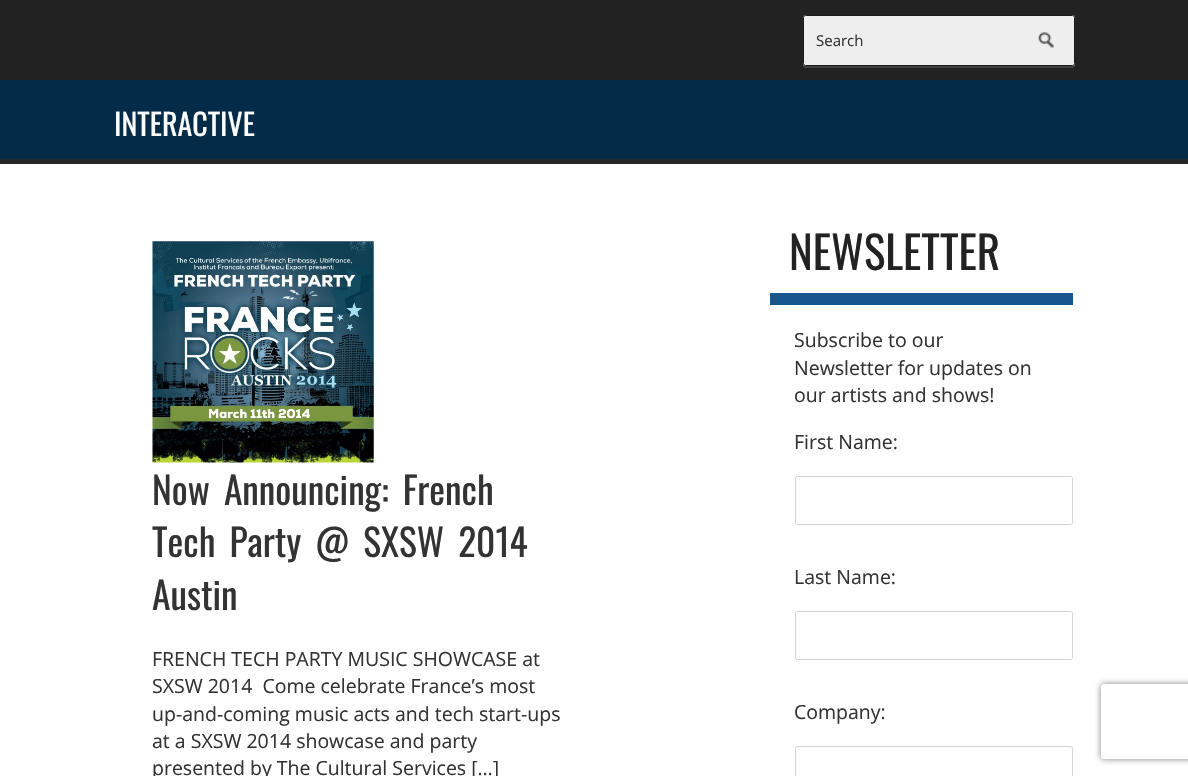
void draw(SkCanvas* canvas) {
    SkPaint paint;
    paint.setAntiAlias(true);
    auto spacedText = [&](const char* s, float x, float y, const SkFont& font, const SkPaint& ink, float letter, float word) {
        std::vector<SkGlyphID> glyphs(font.countText(s, strlen(s), SkTextEncoding::kUTF8));
        std::vector<float> xs(glyphs.size());
        font.textToGlyphs(s, strlen(s), SkTextEncoding::kUTF8, glyphs);
        font.getXPos(glyphs, xs, x);
        float extra = 0;
        for (size_t i = 0; i < glyphs.size(); i++) {
            xs[i] += extra;
            extra += letter + word * (glyphs[i] == font.unicharToGlyph(' '));
        }
        canvas->drawTextBlob(SkTextBlob::MakeFromPosHGlyphs(glyphs, xs, y, font), 0, 0, ink);
    };
    canvas->clear(0xFFFFFFFF);
    paint.setColor(0xFF222222);
    canvas->drawRect(SkRect::MakeXYWH(0, 0, 1188, 80), paint);
    paint.setColor(0xFF3F3F3F);
    canvas->drawPath(SkPathBuilder().moveTo(803, 65).cubicTo(803, 67, 804, 68, 806, 68).lineTo(1073, 68).cubicTo(1075, 67, 1075, 65, 1075, 64).cubicTo(1075, 65, 1074, 66, 1072, 66).lineTo(805, 66).cubicTo(804, 66, 803, 66, 803, 65).close().detach(), paint);
    paint.setColor(0xFFEEEEEE);
    canvas->drawRoundRect(SkRect::MakeXYWH(803, 15, 272, 51), 2.5f, 2.5f, paint);
    canvas->drawImageRect(SkImages::DeferredFromEncodedData(SkData::MakeFromFileName("img1.png")), SkRect::MakeXYWH(1038, 32, 16, 16), SkSamplingOptions());
    paint.setStyle(SkPaint::kStroke_Style);
    paint.setStrokeWidth(1);
    paint.setColor(0xFF1B1B1B);
    canvas->drawRoundRect(SkRect::MakeXYWH(803.5f, 15.5f, 271, 50), 2, 2, paint);
    SkFont font1(fontMgr->matchFamilyStyle("Open Sans", SkFontStyle::Normal()), 15);
    font1.setSubpixel(true);
    paint.setStyle(SkPaint::kFill_Style);
    paint.setColor(0xFF333333);
    canvas->drawString("Search", 816, 46, font1, paint);
    paint.setColor(0xFF042B47);
    canvas->drawRect(SkRect::MakeXYWH(0, 80, 1188, 79), paint);
    paint.setColor(0xFF272727);
    canvas->drawRect(SkRect::MakeXYWH(0, 159, 1188, 5), paint);
    SkFont font2(fontMgr->matchFamilyStyle("Oswald", SkFontStyle::Normal()), 30);
    font2.setSubpixel(true);
    paint.setColor(0xFFFFFFFF);
    canvas->drawString("INTERACTIVE", 114, 136, font2, paint);
    canvas->drawImageRect(SkImages::DeferredFromEncodedData(SkData::MakeFromFileName("img2.png")), SkRect::MakeXYWH(152, 241, 222, 222), SkSamplingOptions());
    SkFont font3(fontMgr->matchFamilyStyle("Oswald", SkFontStyle::Normal()), 37.5f);
    font3.setSubpixel(true);
    paint.setColor(0xFF333333);
    spacedText("Now Announcing: French", 152, 505, font3, paint, 0, 5.5f);
    spacedText("Tech Party @ SXSW 2014", 152, 557, font3, paint, 0, 5.5f);
    canvas->drawString("Austin", 152, 610, font3, paint);
    SkFont font4(fontMgr->matchFamilyStyle("Open Sans", SkFontStyle::Normal()), 19.5f);
    font4.setSubpixel(true);
    canvas->drawString("FRENCH TECH PARTY MUSIC SHOWCASE at", 152, 666, font4, paint);
    canvas->drawString("SXSW 2014  Come celebrate France’s most", 152, 693, font4, paint);
    canvas->drawString("up-and-coming music acts and tech start-ups", 152, 721, font4, paint);
    canvas->drawString("at a SXSW 2014 showcase and party", 152, 748, font4, paint);
    canvas->drawString("presented by The Cultural Services […]", 152, 775, font4, paint);
    paint.setColor(0xFF18568F);
    canvas->drawRect(SkRect::MakeXYWH(770, 293, 303, 12), paint);
    SkFont font5(fontMgr->matchFamilyStyle("Oswald", SkFontStyle::Normal()), 45);
    font5.setSubpixel(true);
    paint.setColor(0xFF222222);
    canvas->drawString("NEWSLETTER", 789, 270, font5, paint);
    paint.setColor(0xFF333333);
    canvas->drawString("Subscribe to our", 794, 347, font4, paint);
    canvas->drawString("Newsletter for updates on", 794, 375, font4, paint);
    canvas->drawString("our artists and shows!", 794, 402, font4, paint);
    canvas->drawString("First Name:", 794, 449, font4, paint);
    paint.setStyle(SkPaint::kStroke_Style);
    paint.setColor(0xFFD4D4D4);
    canvas->drawRoundRect(SkRect::MakeXYWH(795.5f, 476.5f, 277, 48), 2, 2, paint);
    paint.setStyle(SkPaint::kFill_Style);
    paint.setColor(0xFF333333);
    canvas->drawString("Last Name:", 794, 584, font4, paint);
    paint.setStyle(SkPaint::kStroke_Style);
    paint.setColor(0xFFD4D4D4);
    canvas->drawRoundRect(SkRect::MakeXYWH(795.5f, 611.5f, 277, 48), 2, 2, paint);
    paint.setStyle(SkPaint::kFill_Style);
    paint.setColor(0xFF333333);
    canvas->drawString("Company:", 794, 719, font4, paint);
    paint.setStyle(SkPaint::kStroke_Style);
    paint.setColor(0xFFD4D4D4);
    canvas->drawRoundRect(SkRect::MakeXYWH(795.5f, 746.5f, 277, 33), 2, 2, paint);
    canvas->save();
    canvas->clipPath(SkPathBuilder(SkPathFillType::kEvenOdd).moveTo(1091, 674).lineTo(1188, 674).lineTo(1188, 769).lineTo(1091, 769).close().moveTo(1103.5f, 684).lineTo(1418.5f, 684).cubicTo(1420, 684, 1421, 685, 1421, 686.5f).lineTo(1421, 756.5f).cubicTo(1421, 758, 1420, 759, 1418.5f, 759).lineTo(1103.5f, 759).cubicTo(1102, 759, 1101, 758, 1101, 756.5f).lineTo(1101, 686.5f).cubicTo(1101, 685, 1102, 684, 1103.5f, 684).close().detach(), true);
    paint.setStyle(SkPaint::kFill_Style);
    paint.setColor(0xFF808080);
    paint.setMaskFilter(SkMaskFilter::MakeBlur(kNormal_SkBlurStyle, 3));
    canvas->drawRoundRect(SkRect::MakeXYWH(1101, 684, 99, 75), 2.5f, 2.5f, paint);
    paint.setMaskFilter(nullptr);
    canvas->restore();
}
